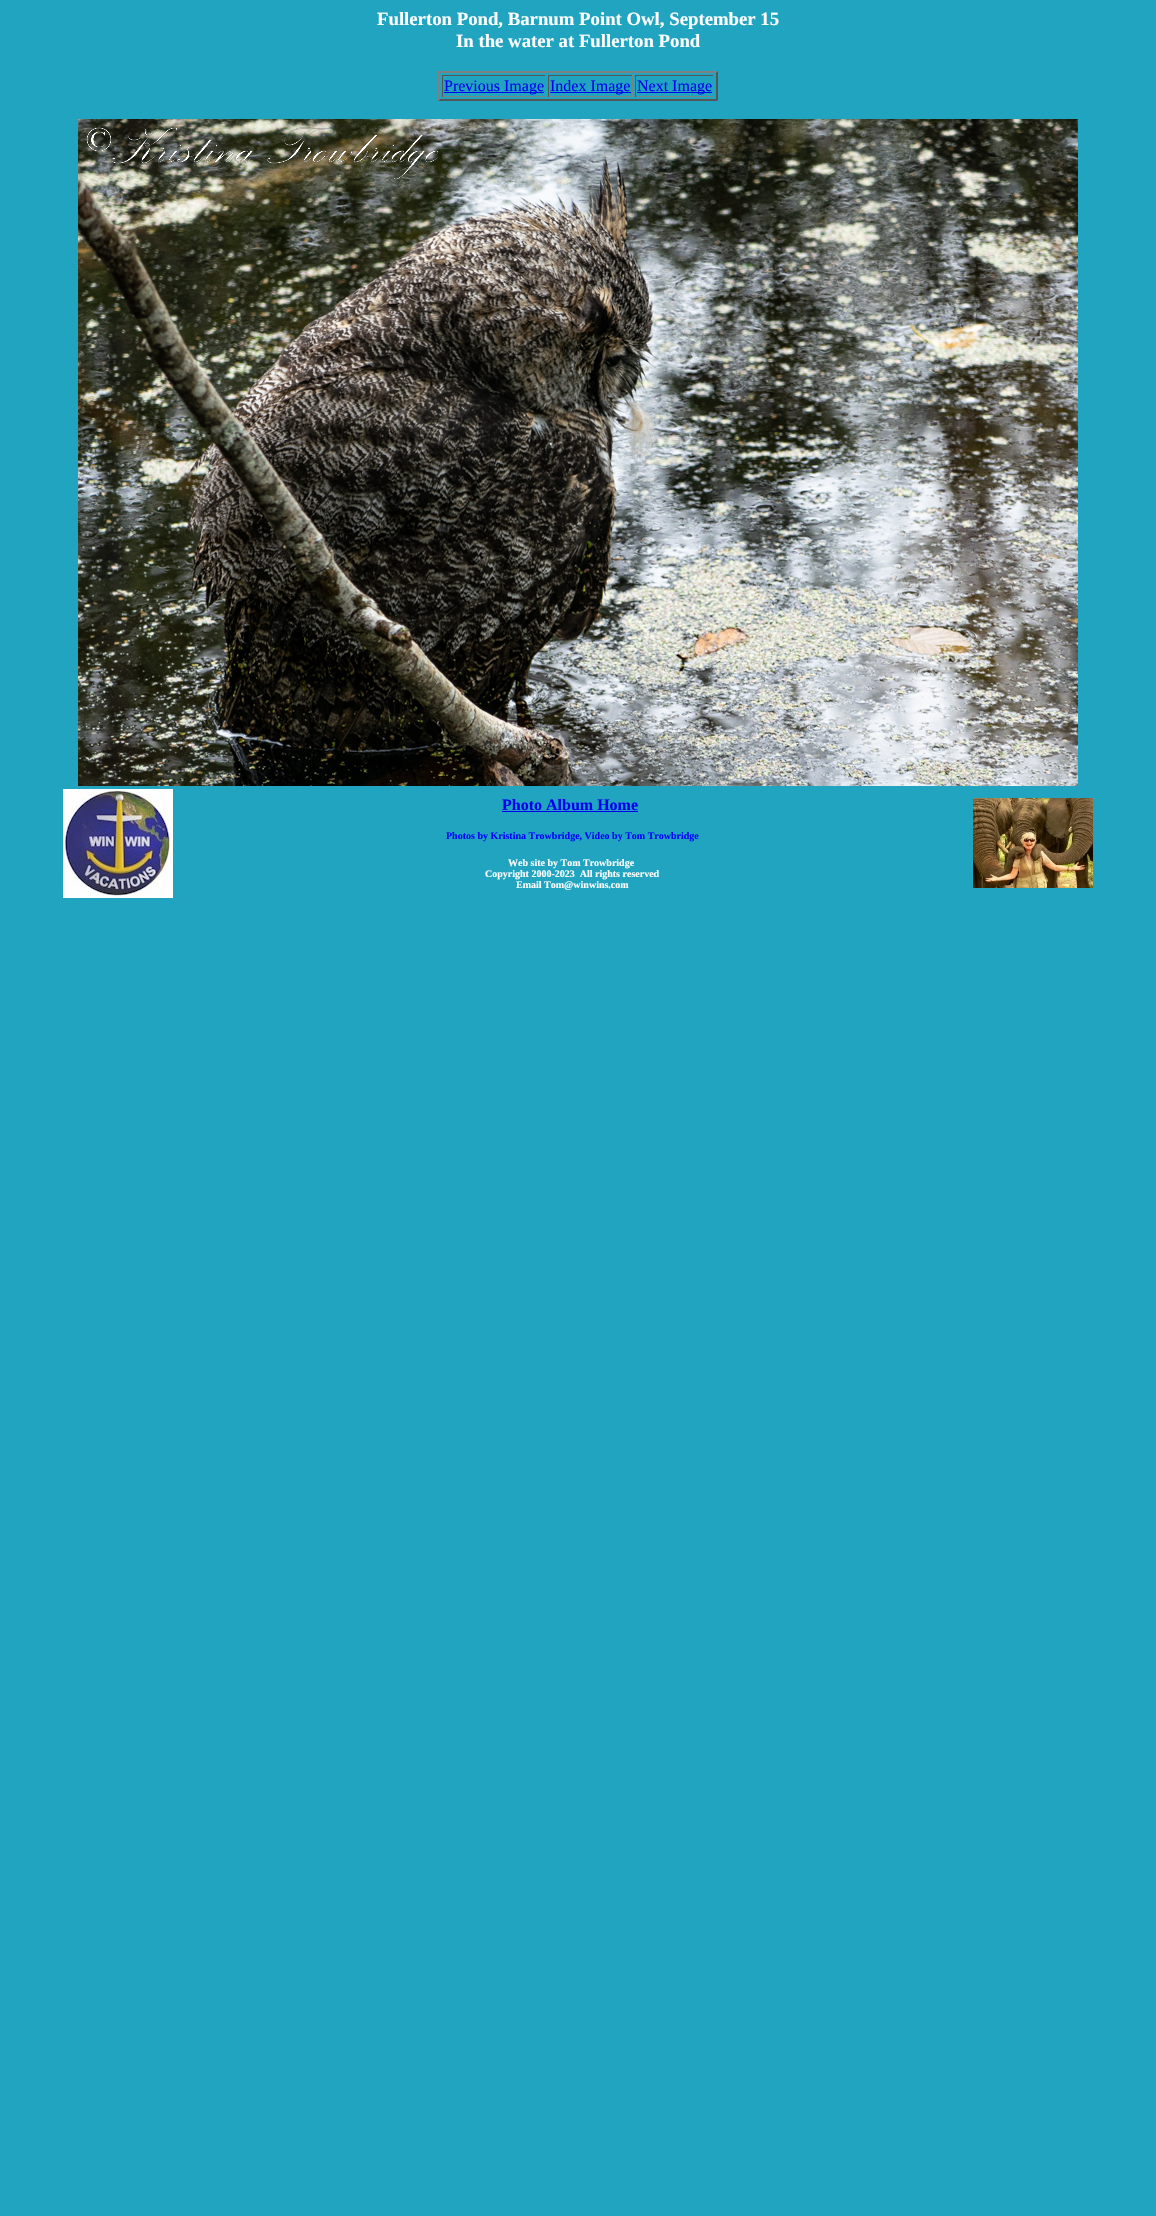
void draw(SkCanvas* canvas) {
    SkPaint paint;
    paint.setAntiAlias(true);
    canvas->clear(0xFF20A4BF);
    SkFont font1(fontMgr->matchFamilyStyle("Liberation Serif", SkFontStyle::Bold()), 18.75f);
    font1.setSubpixel(true);
    paint.setColor(0xFFFFFFFF);
    canvas->drawString("Fullerton Pond, Barnum Point Owl, September 15", 377, 25, font1, paint);
    canvas->drawString("In the water at Fullerton Pond", 456, 47, font1, paint);
    paint.setColor(0xFF808080);
    canvas->drawPath(SkPathBuilder().moveTo(438, 71).lineTo(718, 71).lineTo(716, 73).lineTo(440, 73).close().detach(), paint);
    paint.setColor(0xFF555555);
    canvas->drawPath(SkPathBuilder().moveTo(718, 71).lineTo(718, 101).lineTo(716, 99).lineTo(716, 73).close().detach(), paint);
    canvas->drawPath(SkPathBuilder().moveTo(718, 101).lineTo(438, 101).lineTo(440, 99).lineTo(716, 99).close().detach(), paint);
    paint.setColor(0xFF808080);
    canvas->drawPath(SkPathBuilder().moveTo(438, 101).lineTo(438, 71).lineTo(440, 73).lineTo(440, 99).close().detach(), paint);
    paint.setColor(0xFF555555);
    canvas->drawRect(SkRect::MakeXYWH(442, 75, 104, 1), paint);
    paint.setColor(0xFF808080);
    canvas->drawRect(SkRect::MakeXYWH(545, 75, 1, 22), paint);
    canvas->drawRect(SkRect::MakeXYWH(442, 96, 104, 1), paint);
    paint.setColor(0xFF555555);
    canvas->drawRect(SkRect::MakeXYWH(442, 75, 1, 22), paint);
    paint.setColor(0xFF0000EE);
    canvas->drawRect(SkRect::MakeXYWH(444, 92, 100, 1), paint);
    SkFont font2(fontMgr->matchFamilyStyle("Liberation Serif", SkFontStyle::Normal()), 16);
    font2.setSubpixel(true);
    canvas->drawString("Previous Image", 444, 91, font2, paint);
    paint.setColor(0xFF555555);
    canvas->drawRect(SkRect::MakeXYWH(548, 75, 85, 1), paint);
    paint.setColor(0xFF808080);
    canvas->drawRect(SkRect::MakeXYWH(632, 75, 1, 22), paint);
    canvas->drawRect(SkRect::MakeXYWH(548, 96, 85, 1), paint);
    paint.setColor(0xFF555555);
    canvas->drawRect(SkRect::MakeXYWH(548, 75, 1, 22), paint);
    paint.setColor(0xFF0000EE);
    canvas->drawRect(SkRect::MakeXYWH(550, 92, 81, 1), paint);
    canvas->drawString("Index Image", 550, 91, font2, paint);
    paint.setColor(0xFF555555);
    canvas->drawRect(SkRect::MakeXYWH(635, 75, 79, 1), paint);
    paint.setColor(0xFF808080);
    canvas->drawRect(SkRect::MakeXYWH(713, 75, 1, 22), paint);
    canvas->drawRect(SkRect::MakeXYWH(635, 96, 79, 1), paint);
    paint.setColor(0xFF555555);
    canvas->drawRect(SkRect::MakeXYWH(635, 75, 1, 22), paint);
    paint.setColor(0xFF0000EE);
    canvas->drawRect(SkRect::MakeXYWH(637, 92, 75, 1), paint);
    canvas->drawString("Next Image", 637, 91, font2, paint);
    canvas->drawImageRect(SkImages::DeferredFromEncodedData(SkData::MakeFromFileName("img1.png")), SkRect::MakeXYWH(78, 119, 1000, 667), SkSamplingOptions());
    canvas->drawImageRect(SkImages::DeferredFromEncodedData(SkData::MakeFromFileName("img2.png")), SkRect::MakeXYWH(63, 789, 110, 109), SkSamplingOptions());
    SkFont font3(fontMgr->matchFamilyStyle("Liberation Serif", SkFontStyle::Bold()), 16);
    font3.setSubpixel(true);
    canvas->drawString("Photo Album Home", 502, 810, font3, paint);
    canvas->drawRect(SkRect::MakeXYWH(502, 811, 136, 1), paint);
    SkFont font4(fontMgr->matchFamilyStyle("Liberation Serif", SkFontStyle::Bold()), 10);
    font4.setSubpixel(true);
    paint.setColor(0xFF0000FF);
    canvas->drawString("Photos by Kristina Trowbridge, Video by Tom Trowbridge", 446, 839, font4, paint);
    paint.setColor(0xFFFFFFFF);
    canvas->drawString("Web site by Tom Trowbridge", 508, 866, font4, paint);
    canvas->drawString("Copyright 2000-2023  All rights reserved", 485, 877, font4, paint);
    canvas->drawString("Email Tom@winwins.com", 516, 888, font4, paint);
    canvas->drawImageRect(SkImages::DeferredFromEncodedData(SkData::MakeFromFileName("img3.png")), SkRect::MakeXYWH(973, 798, 120, 90), SkSamplingOptions());
}
